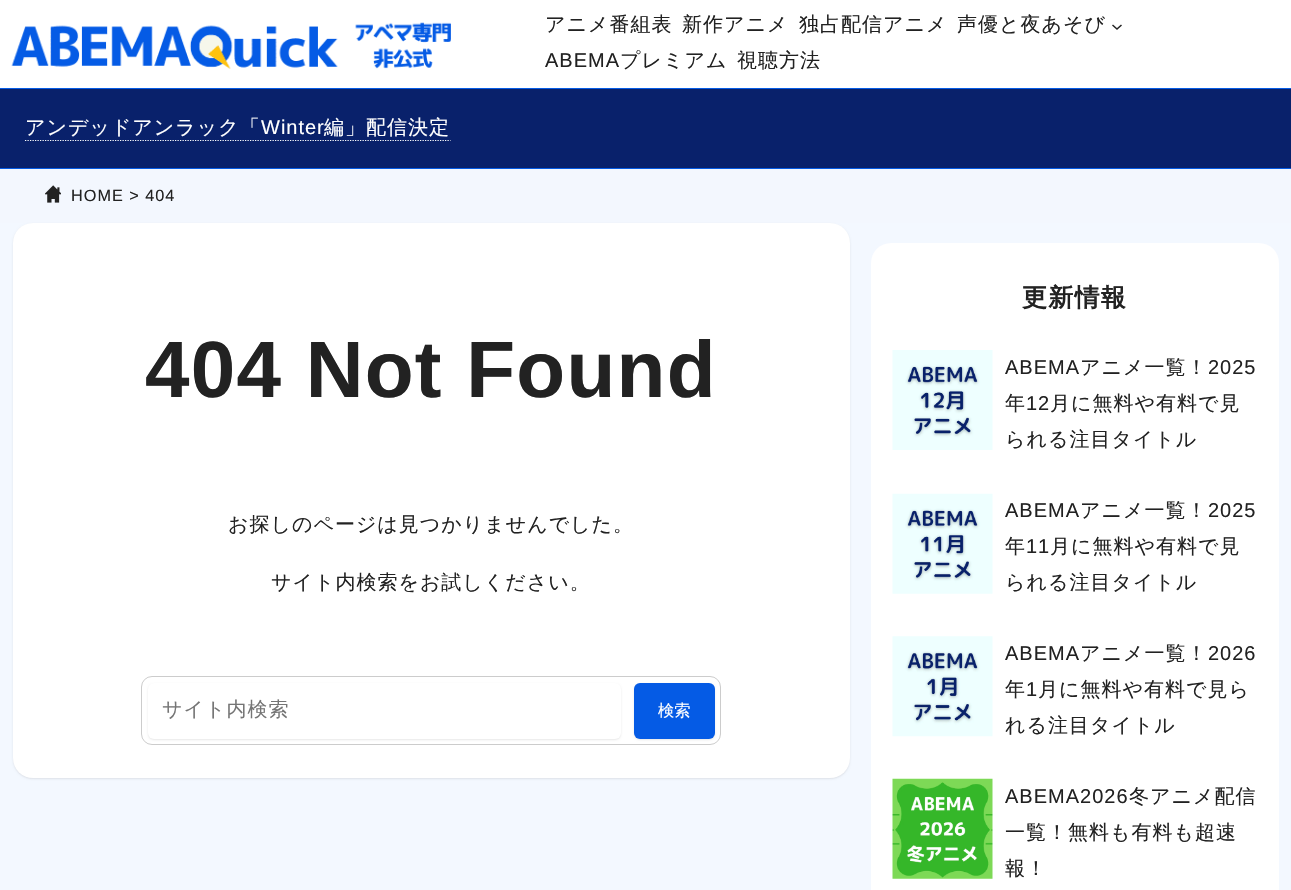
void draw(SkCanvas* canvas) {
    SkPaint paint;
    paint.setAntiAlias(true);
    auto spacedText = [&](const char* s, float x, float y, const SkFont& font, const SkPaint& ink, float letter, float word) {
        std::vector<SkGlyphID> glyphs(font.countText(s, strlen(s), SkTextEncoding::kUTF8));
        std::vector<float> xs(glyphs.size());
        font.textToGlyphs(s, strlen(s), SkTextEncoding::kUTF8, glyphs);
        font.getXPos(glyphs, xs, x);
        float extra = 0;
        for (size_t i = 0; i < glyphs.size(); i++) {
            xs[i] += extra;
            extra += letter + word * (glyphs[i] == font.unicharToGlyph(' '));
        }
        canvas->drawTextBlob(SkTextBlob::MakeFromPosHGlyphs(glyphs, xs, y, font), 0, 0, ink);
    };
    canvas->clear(0xFFFFFFFF);
    canvas->drawImageRect(SkImages::DeferredFromEncodedData(SkData::MakeFromFileName("img1.png")), SkRect::MakeXYWH(11, 22, 440, 47), SkSamplingOptions());
    SkFont font1(fontMgr->matchFamilyStyle("WenQuanYi Zen Hei", SkFontStyle(500, SkFontStyle::kNormal_Width, SkFontStyle::kUpright_Slant)), 20);
    font1.setSubpixel(true);
    paint.setColor(0xFF222222);
    spacedText("アニメ番組表", 545, 31, font1, paint, 1, 0);
    spacedText("新作アニメ", 682, 31, font1, paint, 1, 0);
    spacedText("独占配信アニメ", 799, 31, font1, paint, 1, 0);
    spacedText("声優と夜あそび", 957, 31, font1, paint, 1, 0);
    paint.setStyle(SkPaint::kStroke_Style);
    paint.setStrokeWidth(1.5f);
    canvas->drawPath(SkPathBuilder().moveTo(1112.5f, 25).lineTo(1117, 29).lineTo(1121.5f, 25).detach(), paint);
    SkFont font2(fontMgr->matchFamilyStyle("Liberation Sans", SkFontStyle::Normal()), 20);
    font2.setSubpixel(true);
    paint.setStyle(SkPaint::kFill_Style);
    spacedText("ABEMA", 545, 67, font2, paint, 1, 0);
    spacedText("プレミアム", 620, 67, font1, paint, 1, 0);
    spacedText("視聴方法", 737, 67, font1, paint, 1, 0);
    paint.setColor(0xFF09216B);
    canvas->drawRect(SkRect::MakeXYWH(0, 89, 1291, 79), paint);
    paint.setColor(0xFF055BE5);
    canvas->drawRect(SkRect::MakeXYWH(0, 88, 1291, 1), paint);
    canvas->drawRect(SkRect::MakeXYWH(0, 168, 1291, 1), paint);
    paint.setColor(0xFFFFFFFF);
    spacedText("アンデッドアンラック「", 25, 134, font1, paint, 1, 0);
    paint.setStyle(SkPaint::kStroke_Style);
    paint.setStrokeWidth(1.2f);
    paint.setPathEffect(SkDashPathEffect::Make({{1.25f, 1.25f}}, 0));
    canvas->drawPath(SkPathBuilder().moveTo(25, 140.5f).lineTo(450.5f, 140.5f).detach(), paint);
    paint.setPathEffect(nullptr);
    paint.setStyle(SkPaint::kFill_Style);
    spacedText("Winter", 261, 134, font2, paint, 1, 0);
    spacedText("編」配信決定", 324, 134, font1, paint, 1, 0);
    paint.setColor(0xFFF3F7FE);
    canvas->drawRect(SkRect::MakeXYWH(0, 169, 1291, 54), paint);
    canvas->drawImageRect(SkImages::DeferredFromEncodedData(SkData::MakeFromFileName("img2.png")), SkRect::MakeXYWH(45, 185, 16, 18), SkSamplingOptions());
    SkFont font3(fontMgr->matchFamilyStyle("Liberation Sans", SkFontStyle::Normal()), 16.25f);
    font3.setSubpixel(true);
    paint.setColor(0xFF222222);
    spacedText("HOME > 404", 71, 201, font3, paint, 1, 0);
    paint.setColor(0xFFF3F8FF);
    canvas->drawRect(SkRect::MakeXYWH(0, 223, 1291, 667), paint);
    paint.setColor(0x17000000);
    paint.setMaskFilter(SkMaskFilter::MakeBlur(kNormal_SkBlurStyle, 1));
    canvas->drawRoundRect(SkRect::MakeXYWH(13, 224, 837, 555), 20, 20, paint);
    paint.setMaskFilter(nullptr);
    paint.setColor(0xFFFFFFFF);
    canvas->drawRoundRect(SkRect::MakeXYWH(13, 223, 837, 555), 20, 20, paint);
    SkFont font4(fontMgr->matchFamilyStyle("Liberation Sans", SkFontStyle::Bold()), 80);
    font4.setSubpixel(true);
    paint.setColor(0xFF222222);
    spacedText("404 Not Found", 145, 397, font4, paint, 1.25f, 0);
    spacedText("お探しのページは見つかりませんでした。", 228, 531, font1, paint, 1, 0);
    spacedText("サイト内検索をお試しください。", 271, 589, font1, paint, 1, 0);
    paint.setStyle(SkPaint::kStroke_Style);
    paint.setStrokeWidth(1);
    paint.setColor(0xFFCCCCCC);
    canvas->drawRoundRect(SkRect::MakeXYWH(141.5f, 676.5f, 579, 68), 10.5f, 10.5f, paint);
    paint.setStyle(SkPaint::kFill_Style);
    paint.setColor(0x17000000);
    paint.setMaskFilter(SkMaskFilter::MakeBlur(kNormal_SkBlurStyle, 1));
    canvas->drawRoundRect(SkRect::MakeXYWH(148, 684, 473, 56), 6, 6, paint);
    paint.setMaskFilter(nullptr);
    paint.setColor(0xFFFFFFFF);
    canvas->drawRoundRect(SkRect::MakeXYWH(148, 683, 473, 56), 6, 6, paint);
    paint.setColor(0xFF757575);
    spacedText("サイト内検索", 162, 716, font1, paint, 1, 0);
    paint.setColor(0x17000000);
    paint.setMaskFilter(SkMaskFilter::MakeBlur(kNormal_SkBlurStyle, 1));
    canvas->drawRoundRect(SkRect::MakeXYWH(634, 684, 81, 56), 6, 6, paint);
    paint.setMaskFilter(nullptr);
    paint.setColor(0xFF055BE5);
    canvas->drawRoundRect(SkRect::MakeXYWH(634, 683, 81, 56), 6, 6, paint);
    SkFont font5(fontMgr->matchFamilyStyle("WenQuanYi Zen Hei", SkFontStyle(500, SkFontStyle::kNormal_Width, SkFontStyle::kUpright_Slant)), 16.25f);
    font5.setSubpixel(true);
    paint.setColor(0xFFFFFFFF);
    canvas->drawString("検索", 658, 716, font5, paint);
    canvas->drawRoundRect(SkRect::MakeXYWH(871, 243, 408, 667), 20, 20, paint);
    SkFont font6(fontMgr->matchFamilyStyle("WenQuanYi Zen Hei", SkFontStyle::Bold()), 25);
    font6.setSubpixel(true);
    paint.setColor(0xFF222222);
    spacedText("更新情報", 1022, 306, font6, paint, 1.25f, 0);
    canvas->drawImageRect(SkImages::DeferredFromEncodedData(SkData::MakeFromFileName("img3.png")), SkRect::MakeXYWH(892, 350, 101, 100), SkSamplingOptions());
    spacedText("ABEMA", 1005, 374, font2, paint, 1, 0);
    spacedText("アニメ一覧！", 1080, 374, font1, paint, 1, 0);
    spacedText("2025", 1208, 374, font2, paint, 1, 0);
    spacedText("年", 1005, 410, font1, paint, 1, 0);
    spacedText("12", 1026, 410, font2, paint, 1, 0);
    spacedText("月に無料や有料で見", 1050, 410, font1, paint, 1, 0);
    spacedText("られる注目タイトル", 1005, 446, font1, paint, 1, 0);
    canvas->drawImageRect(SkImages::DeferredFromEncodedData(SkData::MakeFromFileName("img4.png")), SkRect::MakeXYWH(892, 493, 101, 101), SkSamplingOptions());
    spacedText("ABEMA", 1005, 517, font2, paint, 1, 0);
    spacedText("アニメ一覧！", 1080, 517, font1, paint, 1, 0);
    spacedText("2025", 1208, 517, font2, paint, 1, 0);
    spacedText("年", 1005, 553, font1, paint, 1, 0);
    spacedText("11", 1026, 553, font2, paint, 1, 0);
    spacedText("月に無料や有料で見", 1050, 553, font1, paint, 1, 0);
    spacedText("られる注目タイトル", 1005, 589, font1, paint, 1, 0);
    canvas->drawImageRect(SkImages::DeferredFromEncodedData(SkData::MakeFromFileName("img5.png")), SkRect::MakeXYWH(892, 636, 101, 101), SkSamplingOptions());
    spacedText("ABEMA", 1005, 660, font2, paint, 1, 0);
    spacedText("アニメ一覧！", 1080, 660, font1, paint, 1, 0);
    spacedText("2026", 1208, 660, font2, paint, 1, 0);
    spacedText("年", 1005, 696, font1, paint, 1, 0);
    spacedText("1", 1026, 696, font2, paint, 1, 0);
    spacedText("月に無料や有料で見ら", 1038, 696, font1, paint, 1, 0);
    spacedText("れる注目タイトル", 1005, 732, font1, paint, 1, 0);
    canvas->drawImageRect(SkImages::DeferredFromEncodedData(SkData::MakeFromFileName("img6.png")), SkRect::MakeXYWH(892, 778, 101, 101), SkSamplingOptions());
    spacedText("ABEMA2026", 1005, 803, font2, paint, 1, 0);
    spacedText("冬アニメ配信", 1129, 803, font1, paint, 1, 0);
    spacedText("一覧！無料も有料も超速", 1005, 839, font1, paint, 1, 0);
    spacedText("報！", 1005, 875, font1, paint, 1, 0);
}
